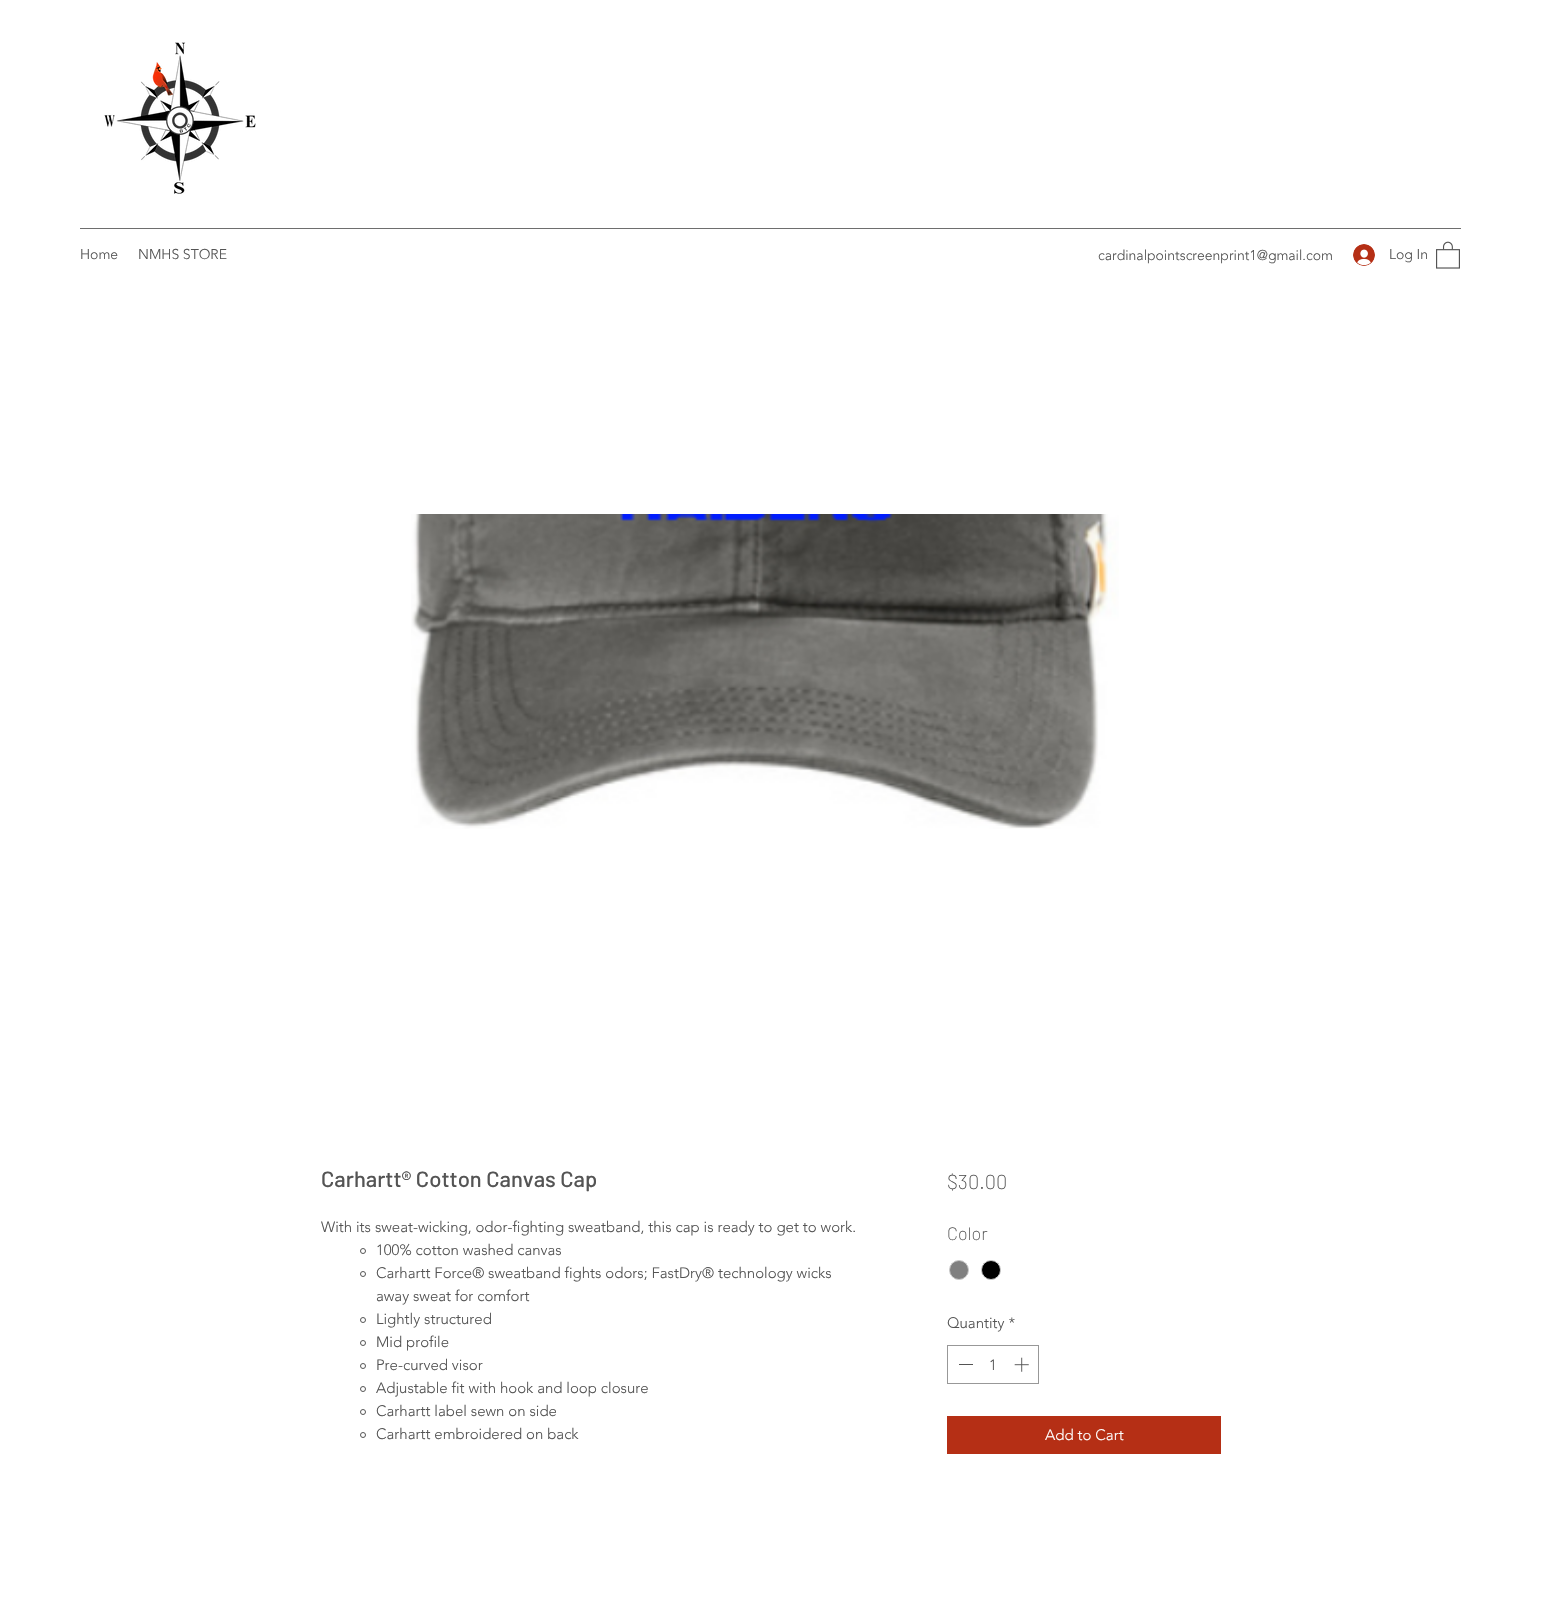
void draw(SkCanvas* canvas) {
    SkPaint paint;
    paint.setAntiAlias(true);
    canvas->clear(0xFFFFFFFF);
    canvas->drawImageRect(SkImages::DeferredFromEncodedData(SkData::MakeFromFileName("img1.png")), SkRect::MakeXYWH(104, 42, 152, 152), SkSamplingOptions());
    paint.setColor(0xFF6E6E6E);
    canvas->drawRect(SkRect::MakeXYWH(80, 228, 1381, 1), paint);
    SkFont font1(fontMgr->matchFamilyStyle("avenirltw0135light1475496", SkFontStyle(300, SkFontStyle::kNormal_Width, SkFontStyle::kUpright_Slant)), 14);
    font1.setSubpixel(true);
    paint.setColor(0xFF545454);
    canvas->drawString("Home", 80, 259, font1, paint);
    canvas->drawString("NMHS STORE", 138, 259, font1, paint);
    canvas->drawString("cardinalpointscreenprint1@gmail.com", 1098, 260, font1, paint);
    canvas->drawImageRect(SkImages::DeferredFromEncodedData(SkData::MakeFromFileName("img2.png")), SkRect::MakeXYWH(1353, 244, 22, 22), SkSamplingOptions());
    canvas->drawString("Log In", 1389, 259, font1, paint);
    canvas->drawImageRect(SkImages::DeferredFromEncodedData(SkData::MakeFromFileName("img3.png")), SkRect::MakeXYWH(1436, 241, 24, 28), SkSamplingOptions());
    canvas->drawImageRect(SkImages::DeferredFromEncodedData(SkData::MakeFromFileName("img4.png")), SkRect::MakeXYWH(411, 514, 708, 315), SkSamplingOptions());
    SkFont font2(fontMgr->matchFamilyStyle("Barlow", SkFontStyle(500, SkFontStyle::kNormal_Width, SkFontStyle::kUpright_Slant)), 22);
    font2.setSubpixel(true);
    canvas->drawString("Carhartt® Cotton Canvas Cap", 321, 1187, font2, paint);
    SkFont font3(fontMgr->matchFamilyStyle("avenirltw0135light1475496", SkFontStyle(300, SkFontStyle::kNormal_Width, SkFontStyle::kUpright_Slant)), 15);
    font3.setSubpixel(true);
    canvas->drawString("With its sweat-wicking, odor-fighting sweatband, this cap is ready to get to work.", 321, 1232, font3, paint);
    paint.setStyle(SkPaint::kStroke_Style);
    paint.setStrokeWidth(1);
    canvas->drawCircle(363, 1251, 2.5f, paint);
    paint.setStyle(SkPaint::kFill_Style);
    canvas->drawString("100% cotton washed canvas", 376, 1255, font3, paint);
    paint.setStyle(SkPaint::kStroke_Style);
    canvas->drawCircle(363, 1274, 2.5f, paint);
    paint.setStyle(SkPaint::kFill_Style);
    canvas->drawString("Carhartt Force® sweatband fights odors; FastDry® technology wicks", 376, 1278, font3, paint);
    canvas->drawString("away sweat for comfort", 376, 1301, font3, paint);
    paint.setStyle(SkPaint::kStroke_Style);
    canvas->drawCircle(363, 1320, 2.5f, paint);
    paint.setStyle(SkPaint::kFill_Style);
    canvas->drawString("Lightly structured", 376, 1324, font3, paint);
    paint.setStyle(SkPaint::kStroke_Style);
    canvas->drawCircle(363, 1343, 2.5f, paint);
    paint.setStyle(SkPaint::kFill_Style);
    canvas->drawString("Mid profile", 376, 1347, font3, paint);
    paint.setStyle(SkPaint::kStroke_Style);
    canvas->drawCircle(363, 1366, 2.5f, paint);
    paint.setStyle(SkPaint::kFill_Style);
    canvas->drawString("Pre-curved visor", 376, 1370, font3, paint);
    paint.setStyle(SkPaint::kStroke_Style);
    canvas->drawCircle(363, 1389, 2.5f, paint);
    paint.setStyle(SkPaint::kFill_Style);
    canvas->drawString("Adjustable fit with hook and loop closure", 376, 1393, font3, paint);
    paint.setStyle(SkPaint::kStroke_Style);
    canvas->drawCircle(363, 1412, 2.5f, paint);
    paint.setStyle(SkPaint::kFill_Style);
    canvas->drawString("Carhartt label sewn on side", 376, 1416, font3, paint);
    paint.setStyle(SkPaint::kStroke_Style);
    canvas->drawCircle(363, 1435, 2.5f, paint);
    paint.setStyle(SkPaint::kFill_Style);
    canvas->drawString("Carhartt embroidered on back", 376, 1439, font3, paint);
    SkFont font4(fontMgr->matchFamilyStyle("Barlow", SkFontStyle(200, SkFontStyle::kNormal_Width, SkFontStyle::kUpright_Slant)), 20);
    font4.setSubpixel(true);
    canvas->drawString("$30.00", 947, 1189, font4, paint);
    SkFont font5(fontMgr->matchFamilyStyle("Barlow", SkFontStyle(200, SkFontStyle::kNormal_Width, SkFontStyle::kUpright_Slant)), 18);
    font5.setSubpixel(true);
    canvas->drawString("Color", 947, 1240, font5, paint);
    paint.setColor(0xFF808080);
    canvas->drawCircle(959, 1270, 9.5f, paint);
    paint.setStyle(SkPaint::kStroke_Style);
    paint.setColor(0xFFC9C9C9);
    canvas->drawCircle(959, 1270, 9.5f, paint);
    paint.setStyle(SkPaint::kFill_Style);
    paint.setColor(0xFF000000);
    canvas->drawCircle(991, 1270, 9.5f, paint);
    paint.setStyle(SkPaint::kStroke_Style);
    paint.setColor(0xFFC9C9C9);
    canvas->drawCircle(991, 1270, 9.5f, paint);
    paint.setStyle(SkPaint::kFill_Style);
    paint.setColor(0xFF545454);
    canvas->drawString("Quantity *", 947, 1328, font3, paint);
    paint.setStyle(SkPaint::kStroke_Style);
    paint.setColor(0xFF989898);
    canvas->drawRect(SkRect::MakeXYWH(947.5f, 1345.5f, 91, 38), paint);
    paint.setStyle(SkPaint::kFill_Style);
    paint.setColor(0xFF545454);
    canvas->drawRect(SkRect::MakeXYWH(959, 1364, 14, 1), paint);
    canvas->drawString("1", 989, 1370, font3, paint);
    canvas->drawImageRect(SkImages::DeferredFromEncodedData(SkData::MakeFromFileName("img5.png")), SkRect::MakeXYWH(1014, 1357, 15, 15), SkSamplingOptions());
    paint.setColor(0xFFB52F15);
    canvas->drawRect(SkRect::MakeXYWH(947, 1416, 274, 38), paint);
    paint.setColor(0xFFFFFFFF);
    canvas->drawString("Add to Cart", 1045, 1440, font3, paint);
}
